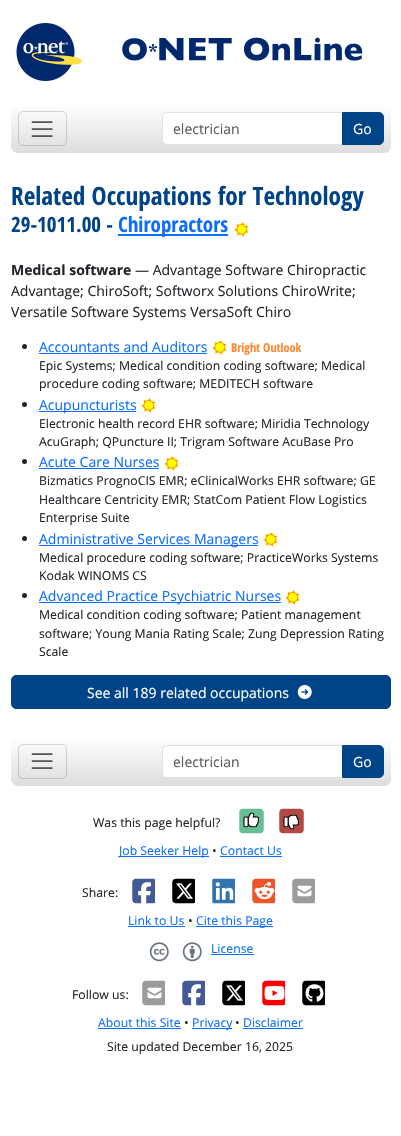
void draw(SkCanvas* canvas) {
    SkPaint paint;
    paint.setAntiAlias(true);
    canvas->clear(0xFFFFFFFF);
    canvas->drawImageRect(SkImages::DeferredFromEncodedData(SkData::MakeFromFileName("img1.png")), SkRect::MakeXYWH(16, 23, 347, 58), SkSamplingOptions());
    {
        const SkColor colors[] = {0xFFFFFFFF, 0xFFDDDDDD};
        const float stops[] = {0, 1};
        const SkPoint ends[] = {{201, 104}, {201, 153}};
        paint.setShader(SkGradientShader::MakeLinear(ends, colors, stops, 2, SkTileMode::kClamp));
        paint.setAlpha(255);
    }
    canvas->drawRoundRect(SkRect::MakeXYWH(11, 104, 380, 49), 7, 7, paint);
    paint.setStyle(SkPaint::kStroke_Style);
    paint.setStrokeWidth(1);
    paint.setShader(nullptr);
    paint.setColor(0x26000000);
    canvas->drawRoundRect(SkRect::MakeXYWH(18.5f, 111.5f, 48, 34), 4.5f, 4.5f, paint);
    canvas->drawImageRect(SkImages::DeferredFromEncodedData(SkData::MakeFromFileName("img2.png")), SkRect::MakeXYWH(31, 121, 22, 16), SkSamplingOptions());
    paint.setStyle(SkPaint::kFill_Style);
    paint.setColor(0xFFFFFFFF);
    canvas->drawPath(SkPathBuilder().moveTo(167, 112.5f).lineTo(342.5f, 112.5f).lineTo(342.5f, 144.5f).lineTo(167, 144.5f).cubicTo(164.5f, 144.5f, 162.5f, 142.5f, 162.5f, 140).lineTo(162.5f, 117).cubicTo(162.5f, 114.5f, 164.5f, 112.5f, 167, 112.5f).close().detach(), paint);
    paint.setStyle(SkPaint::kStroke_Style);
    paint.setColor(0xFFDEE2E6);
    canvas->drawPath(SkPathBuilder().moveTo(167, 112.5f).lineTo(342.5f, 112.5f).lineTo(342.5f, 144.5f).lineTo(167, 144.5f).cubicTo(164.5f, 144.5f, 162.5f, 142.5f, 162.5f, 140).lineTo(162.5f, 117).cubicTo(162.5f, 114.5f, 164.5f, 112.5f, 167, 112.5f).close().detach(), paint);
    SkFont font1(fontMgr->matchFamilyStyle("Open Sans", SkFontStyle::Normal()), 14);
    font1.setSubpixel(true);
    paint.setStyle(SkPaint::kFill_Style);
    paint.setColor(0xFF595C5F);
    canvas->drawString("electrician", 173, 134, font1, paint);
    paint.setColor(0xFF004488);
    canvas->drawPath(SkPathBuilder().moveTo(342.5f, 112.5f).lineTo(379, 112.5f).cubicTo(381.5f, 112.5f, 383.5f, 114.5f, 383.5f, 117).lineTo(383.5f, 140).cubicTo(383.5f, 142.5f, 381.5f, 144.5f, 379, 144.5f).lineTo(342.5f, 144.5f).close().detach(), paint);
    paint.setStyle(SkPaint::kStroke_Style);
    canvas->drawPath(SkPathBuilder().moveTo(342.5f, 112.5f).lineTo(379, 112.5f).cubicTo(381.5f, 112.5f, 383.5f, 114.5f, 383.5f, 117).lineTo(383.5f, 140).cubicTo(383.5f, 142.5f, 381.5f, 144.5f, 379, 144.5f).lineTo(342.5f, 144.5f).close().detach(), paint);
    paint.setStyle(SkPaint::kFill_Style);
    paint.setColor(0xFFFFFFFF);
    canvas->drawString("Go", 353, 134, font1, paint);
    SkFont font2(fontMgr->matchFamilyStyle("Open Sans Condensed", SkFontStyle::Bold()), 25.25f);
    font2.setSubpixel(true);
    paint.setColor(0xFF004488);
    canvas->drawString("Related Occupations for Technology", 11, 205, font2, paint);
    SkFont font3(fontMgr->matchFamilyStyle("Open Sans Condensed", SkFontStyle::Bold()), 21);
    font3.setSubpixel(true);
    canvas->drawString("29-1011.00 -", 11, 232, font3, paint);
    paint.setColor(0xFF0D6EFD);
    canvas->drawRect(SkRect::MakeXYWH(118, 234, 110, 2), paint);
    canvas->drawString("Chiropractors", 118, 232, font3, paint);
    canvas->drawImageRect(SkImages::DeferredFromEncodedData(SkData::MakeFromFileName("img3.png")), SkRect::MakeXYWH(234, 222, 15, 15), SkSamplingOptions());
    SkFont font4(fontMgr->matchFamilyStyle("Open Sans", SkFontStyle::Bold()), 14);
    font4.setSubpixel(true);
    paint.setColor(0xFF212529);
    canvas->drawString("Medical software", 11, 275, font4, paint);
    canvas->drawString("— Advantage Software Chiropractic", 135, 275, font1, paint);
    canvas->drawString("Advantage; ChiroSoft; Softworx Solutions ChiroWrite;", 11, 296, font1, paint);
    canvas->drawString("Versatile Software Systems VersaSoft Chiro", 11, 317, font1, paint);
    canvas->drawCircle(24.5f, 346.5f, 2.5f, paint);
    paint.setColor(0xFF0D6EFD);
    canvas->drawString("Accountants and Auditors", 39, 352, font1, paint);
    canvas->drawRect(SkRect::MakeXYWH(39, 353, 168, 1), paint);
    canvas->drawImageRect(SkImages::DeferredFromEncodedData(SkData::MakeFromFileName("img3.png")), SkRect::MakeXYWH(212, 340, 15, 15), SkSamplingOptions());
    SkFont font5(fontMgr->matchFamilyStyle("Open Sans Condensed", SkFontStyle::Bold()), 12.25f);
    font5.setSubpixel(true);
    paint.setColor(0xFFFF8833);
    canvas->drawString("Bright Outlook", 231, 352, font5, paint);
    SkFont font6(fontMgr->matchFamilyStyle("Open Sans", SkFontStyle::Normal()), 12.25f);
    font6.setSubpixel(true);
    paint.setColor(0xFF212529);
    canvas->drawString("Epic Systems; Medical condition coding software; Medical", 39, 370, font6, paint);
    canvas->drawString("procedure coding software; MEDITECH software", 39, 388, font6, paint);
    canvas->drawCircle(24.5f, 404.5f, 2.5f, paint);
    paint.setColor(0xFF0D6EFD);
    canvas->drawRect(SkRect::MakeXYWH(39, 411, 97, 1), paint);
    canvas->drawString("Acupuncturists", 39, 410, font1, paint);
    canvas->drawImageRect(SkImages::DeferredFromEncodedData(SkData::MakeFromFileName("img3.png")), SkRect::MakeXYWH(141, 398, 15, 15), SkSamplingOptions());
    paint.setColor(0xFF212529);
    canvas->drawString("Electronic health record EHR software; Miridia Technology", 39, 428, font6, paint);
    canvas->drawString("AcuGraph; QPuncture II; Trigram Software AcuBase Pro", 39, 446, font6, paint);
    canvas->drawCircle(24.5f, 461.5f, 2.5f, paint);
    paint.setColor(0xFF0D6EFD);
    canvas->drawString("Acute Care Nurses", 39, 467, font1, paint);
    canvas->drawRect(SkRect::MakeXYWH(39, 468, 120, 1), paint);
    canvas->drawImageRect(SkImages::DeferredFromEncodedData(SkData::MakeFromFileName("img3.png")), SkRect::MakeXYWH(164, 456, 15, 15), SkSamplingOptions());
    paint.setColor(0xFF212529);
    canvas->drawString("Bizmatics PrognoCIS EMR; eClinicalWorks EHR software; GE", 39, 485, font6, paint);
    canvas->drawString("Healthcare Centricity EMR; StatCom Patient Flow Logistics", 39, 504, font6, paint);
    canvas->drawString("Enterprise Suite", 39, 522, font6, paint);
    canvas->drawCircle(24.5f, 538.5f, 2.5f, paint);
    paint.setColor(0xFF0D6EFD);
    canvas->drawRect(SkRect::MakeXYWH(39, 545, 219, 1), paint);
    canvas->drawString("Administrative Services Managers", 39, 544, font1, paint);
    canvas->drawImageRect(SkImages::DeferredFromEncodedData(SkData::MakeFromFileName("img3.png")), SkRect::MakeXYWH(263, 532, 15, 15), SkSamplingOptions());
    paint.setColor(0xFF212529);
    canvas->drawString("Medical procedure coding software; PracticeWorks Systems", 39, 562, font6, paint);
    canvas->drawString("Kodak WINOMS CS", 39, 580, font6, paint);
    canvas->drawCircle(24.5f, 595.5f, 2.5f, paint);
    paint.setColor(0xFF0D6EFD);
    canvas->drawRect(SkRect::MakeXYWH(39, 602, 242, 1), paint);
    canvas->drawString("Advanced Practice Psychiatric Nurses", 39, 601, font1, paint);
    canvas->drawImageRect(SkImages::DeferredFromEncodedData(SkData::MakeFromFileName("img3.png")), SkRect::MakeXYWH(285, 590, 15, 15), SkSamplingOptions());
    paint.setColor(0xFF212529);
    canvas->drawString("Medical condition coding software; Patient management", 39, 619, font6, paint);
    canvas->drawString("software; Young Mania Rating Scale; Zung Depression Rating", 39, 638, font6, paint);
    canvas->drawString("Scale", 39, 656, font6, paint);
    paint.setColor(0xFF004488);
    canvas->drawRoundRect(SkRect::MakeXYWH(11.5f, 675.5f, 379, 33), 4.5f, 4.5f, paint);
    paint.setStyle(SkPaint::kStroke_Style);
    canvas->drawRoundRect(SkRect::MakeXYWH(11.5f, 675.5f, 379, 33), 4.5f, 4.5f, paint);
    paint.setStyle(SkPaint::kFill_Style);
    paint.setColor(0xFFFFFFFF);
    canvas->drawString("See all 189 related occupations", 87, 698, font1, paint);
    canvas->drawImageRect(SkImages::DeferredFromEncodedData(SkData::MakeFromFileName("img4.png")), SkRect::MakeXYWH(297, 685, 15, 14), SkSamplingOptions());
    {
        const SkColor colors[] = {0xFFFFFFFF, 0xFFDDDDDD};
        const float stops[] = {0, 1};
        const SkPoint ends[] = {{201, 737}, {201, 786}};
        paint.setShader(SkGradientShader::MakeLinear(ends, colors, stops, 2, SkTileMode::kClamp));
        paint.setAlpha(255);
    }
    canvas->drawRoundRect(SkRect::MakeXYWH(11, 737, 380, 49), 7, 7, paint);
    paint.setStyle(SkPaint::kStroke_Style);
    paint.setShader(nullptr);
    paint.setColor(0x26000000);
    canvas->drawRoundRect(SkRect::MakeXYWH(18.5f, 744.5f, 48, 34), 4.5f, 4.5f, paint);
    canvas->drawImageRect(SkImages::DeferredFromEncodedData(SkData::MakeFromFileName("img5.png")), SkRect::MakeXYWH(31, 753, 22, 16), SkSamplingOptions());
    paint.setStyle(SkPaint::kFill_Style);
    paint.setColor(0xFFFFFFFF);
    canvas->drawPath(SkPathBuilder().moveTo(167, 745.5f).lineTo(342.5f, 745.5f).lineTo(342.5f, 777.5f).lineTo(167, 777.5f).cubicTo(164.5f, 777.5f, 162.5f, 775.5f, 162.5f, 773).lineTo(162.5f, 750).cubicTo(162.5f, 747.5f, 164.5f, 745.5f, 167, 745.5f).close().detach(), paint);
    paint.setStyle(SkPaint::kStroke_Style);
    paint.setColor(0xFFDEE2E6);
    canvas->drawPath(SkPathBuilder().moveTo(167, 745.5f).lineTo(342.5f, 745.5f).lineTo(342.5f, 777.5f).lineTo(167, 777.5f).cubicTo(164.5f, 777.5f, 162.5f, 775.5f, 162.5f, 773).lineTo(162.5f, 750).cubicTo(162.5f, 747.5f, 164.5f, 745.5f, 167, 745.5f).close().detach(), paint);
    paint.setStyle(SkPaint::kFill_Style);
    paint.setColor(0xFF595C5F);
    canvas->drawString("electrician", 173, 767, font1, paint);
    paint.setColor(0xFF004488);
    canvas->drawPath(SkPathBuilder().moveTo(342.5f, 745.5f).lineTo(379, 745.5f).cubicTo(381.5f, 745.5f, 383.5f, 747.5f, 383.5f, 750).lineTo(383.5f, 773).cubicTo(383.5f, 775.5f, 381.5f, 777.5f, 379, 777.5f).lineTo(342.5f, 777.5f).close().detach(), paint);
    paint.setStyle(SkPaint::kStroke_Style);
    canvas->drawPath(SkPathBuilder().moveTo(342.5f, 745.5f).lineTo(379, 745.5f).cubicTo(381.5f, 745.5f, 383.5f, 747.5f, 383.5f, 750).lineTo(383.5f, 773).cubicTo(383.5f, 775.5f, 381.5f, 777.5f, 379, 777.5f).lineTo(342.5f, 777.5f).close().detach(), paint);
    paint.setStyle(SkPaint::kFill_Style);
    paint.setColor(0xFFFFFFFF);
    canvas->drawString("Go", 353, 767, font1, paint);
    paint.setColor(0xFF212529);
    canvas->drawString("Was this page helpful?", 93, 827, font6, paint);
    canvas->drawImageRect(SkImages::DeferredFromEncodedData(SkData::MakeFromFileName("img6.png")), SkRect::MakeXYWH(239, 808, 25, 26), SkSamplingOptions());
    canvas->drawImageRect(SkImages::DeferredFromEncodedData(SkData::MakeFromFileName("img7.png")), SkRect::MakeXYWH(243, 812, 14, 13), SkSamplingOptions());
    canvas->drawImageRect(SkImages::DeferredFromEncodedData(SkData::MakeFromFileName("img10.png")), SkRect::MakeXYWH(246, 814, 13, 14), SkSamplingOptions());
    canvas->drawImageRect(SkImages::DeferredFromEncodedData(SkData::MakeFromFileName("img8.png")), SkRect::MakeXYWH(245, 812, 14, 13), SkSamplingOptions());
    canvas->drawImageRect(SkImages::DeferredFromEncodedData(SkData::MakeFromFileName("img11.png")), SkRect::MakeXYWH(243, 818, 12, 10), SkSamplingOptions());
    canvas->drawImageRect(SkImages::DeferredFromEncodedData(SkData::MakeFromFileName("img9.png")), SkRect::MakeXYWH(244, 813, 14, 14), SkSamplingOptions());
    canvas->drawImageRect(SkImages::DeferredFromEncodedData(SkData::MakeFromFileName("img12.png")), SkRect::MakeXYWH(279, 808, 25, 26), SkSamplingOptions());
    canvas->drawImageRect(SkImages::DeferredFromEncodedData(SkData::MakeFromFileName("img13.png")), SkRect::MakeXYWH(283, 814, 12, 11), SkSamplingOptions());
    canvas->drawImageRect(SkImages::DeferredFromEncodedData(SkData::MakeFromFileName("img16.png")), SkRect::MakeXYWH(286, 817, 13, 13), SkSamplingOptions());
    canvas->drawImageRect(SkImages::DeferredFromEncodedData(SkData::MakeFromFileName("img14.png")), SkRect::MakeXYWH(285, 814, 14, 13), SkSamplingOptions());
    canvas->drawImageRect(SkImages::DeferredFromEncodedData(SkData::MakeFromFileName("img17.png")), SkRect::MakeXYWH(283, 818, 14, 12), SkSamplingOptions());
    canvas->drawImageRect(SkImages::DeferredFromEncodedData(SkData::MakeFromFileName("img15.png")), SkRect::MakeXYWH(284, 815, 14, 14), SkSamplingOptions());
    paint.setColor(0xFF0D6EFD);
    canvas->drawRect(SkRect::MakeXYWH(119, 856, 90, 1), paint);
    canvas->drawString("Job Seeker Help", 119, 855, font6, paint);
    paint.setColor(0xFF212529);
    canvas->drawString("•", 212, 855, font6, paint);
    paint.setColor(0xFF0D6EFD);
    canvas->drawString("Contact Us", 220, 855, font6, paint);
    canvas->drawRect(SkRect::MakeXYWH(220, 856, 62, 1), paint);
    paint.setColor(0xFF212529);
    canvas->drawString("Share:", 82, 897, font6, paint);
    canvas->drawImageRect(SkImages::DeferredFromEncodedData(SkData::MakeFromFileName("img18.png")), SkRect::MakeXYWH(132, 878, 23, 26), SkSamplingOptions());
    canvas->drawImageRect(SkImages::DeferredFromEncodedData(SkData::MakeFromFileName("img19.png")), SkRect::MakeXYWH(172, 878, 23, 26), SkSamplingOptions());
    canvas->drawImageRect(SkImages::DeferredFromEncodedData(SkData::MakeFromFileName("img20.png")), SkRect::MakeXYWH(212, 878, 23, 26), SkSamplingOptions());
    canvas->drawImageRect(SkImages::DeferredFromEncodedData(SkData::MakeFromFileName("img21.png")), SkRect::MakeXYWH(252, 878, 23, 26), SkSamplingOptions());
    canvas->drawImageRect(SkImages::DeferredFromEncodedData(SkData::MakeFromFileName("img22.png")), SkRect::MakeXYWH(292, 878, 23, 26), SkSamplingOptions());
    paint.setColor(0xFF0D6EFD);
    canvas->drawString("Link to Us", 128, 925, font6, paint);
    canvas->drawRect(SkRect::MakeXYWH(128, 926, 57, 1), paint);
    paint.setColor(0xFF212529);
    canvas->drawString("•", 188, 925, font6, paint);
    paint.setColor(0xFF0D6EFD);
    canvas->drawRect(SkRect::MakeXYWH(196, 926, 77, 1), paint);
    canvas->drawString("Cite this Page", 196, 925, font6, paint);
    canvas->drawImageRect(SkImages::DeferredFromEncodedData(SkData::MakeFromFileName("img23.png")), SkRect::MakeXYWH(149, 942, 20, 20), SkSamplingOptions());
    canvas->drawImageRect(SkImages::DeferredFromEncodedData(SkData::MakeFromFileName("img24.png")), SkRect::MakeXYWH(182, 942, 20, 20), SkSamplingOptions());
    canvas->drawString("License", 211, 953, font6, paint);
    canvas->drawRect(SkRect::MakeXYWH(211, 954, 43, 1), paint);
    paint.setColor(0xFF212529);
    canvas->drawString("Follow us:", 72, 999, font6, paint);
    canvas->drawImageRect(SkImages::DeferredFromEncodedData(SkData::MakeFromFileName("img22.png")), SkRect::MakeXYWH(142, 980, 23, 26), SkSamplingOptions());
    canvas->drawImageRect(SkImages::DeferredFromEncodedData(SkData::MakeFromFileName("img18.png")), SkRect::MakeXYWH(182, 980, 23, 26), SkSamplingOptions());
    canvas->drawImageRect(SkImages::DeferredFromEncodedData(SkData::MakeFromFileName("img19.png")), SkRect::MakeXYWH(222, 980, 23, 26), SkSamplingOptions());
    canvas->drawImageRect(SkImages::DeferredFromEncodedData(SkData::MakeFromFileName("img25.png")), SkRect::MakeXYWH(262, 980, 23, 26), SkSamplingOptions());
    canvas->drawImageRect(SkImages::DeferredFromEncodedData(SkData::MakeFromFileName("img26.png")), SkRect::MakeXYWH(302, 980, 23, 26), SkSamplingOptions());
    paint.setColor(0xFF0D6EFD);
    canvas->drawString("About this Site", 98, 1027, font6, paint);
    canvas->drawRect(SkRect::MakeXYWH(98, 1028, 83, 1), paint);
    paint.setColor(0xFF212529);
    canvas->drawString("•", 184, 1027, font6, paint);
    paint.setColor(0xFF0D6EFD);
    canvas->drawRect(SkRect::MakeXYWH(192, 1028, 40, 1), paint);
    canvas->drawString("Privacy", 192, 1027, font6, paint);
    paint.setColor(0xFF212529);
    canvas->drawString("•", 235, 1027, font6, paint);
    paint.setColor(0xFF0D6EFD);
    canvas->drawString("Disclaimer", 243, 1027, font6, paint);
    canvas->drawRect(SkRect::MakeXYWH(243, 1028, 60, 1), paint);
    paint.setColor(0xFF212529);
    canvas->drawString("Site updated December 16, 2025", 107, 1051, font6, paint);
}
